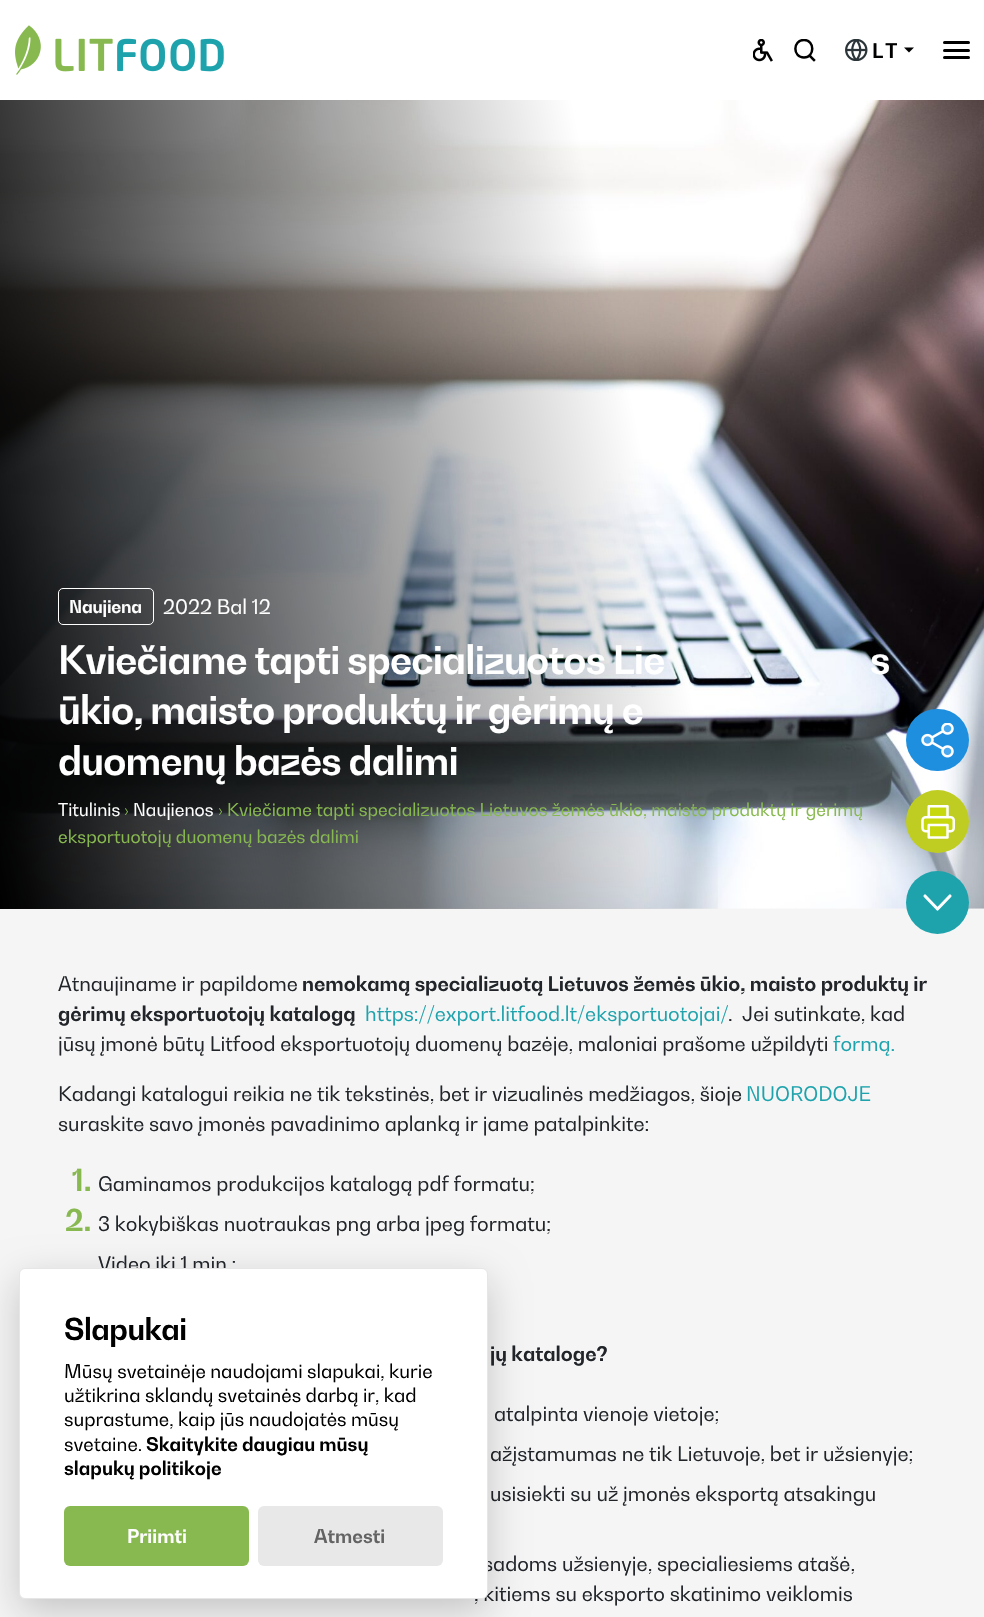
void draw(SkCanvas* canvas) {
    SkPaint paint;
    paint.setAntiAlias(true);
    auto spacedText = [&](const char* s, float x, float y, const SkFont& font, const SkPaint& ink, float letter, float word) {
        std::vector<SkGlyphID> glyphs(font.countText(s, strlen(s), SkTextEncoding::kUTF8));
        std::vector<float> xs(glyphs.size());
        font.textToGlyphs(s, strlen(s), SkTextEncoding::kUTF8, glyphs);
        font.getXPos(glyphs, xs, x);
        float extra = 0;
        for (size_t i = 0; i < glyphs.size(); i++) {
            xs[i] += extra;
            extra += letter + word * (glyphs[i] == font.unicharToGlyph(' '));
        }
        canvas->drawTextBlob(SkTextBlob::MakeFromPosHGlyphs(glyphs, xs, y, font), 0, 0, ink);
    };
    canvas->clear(0xFFF5F5F5);
    paint.setColor(0xFFFFFFFF);
    canvas->drawRect(SkRect::MakeXYWH(0, 0, 984, 100), paint);
    canvas->drawImageRect(SkImages::DeferredFromEncodedData(SkData::MakeFromFileName("img1.png")), SkRect::MakeXYWH(15, 25, 209, 50), SkSamplingOptions());
    canvas->drawImageRect(SkImages::DeferredFromEncodedData(SkData::MakeFromFileName("img2.png")), SkRect::MakeXYWH(753, 39, 20, 23), SkSamplingOptions());
    canvas->save();
    canvas->clipRect(SkRect::MakeXYWH(794, 39, 22, 24));
    paint.setStyle(SkPaint::kStroke_Style);
    paint.setStrokeWidth(2.5f);
    paint.setStrokeCap(SkPaint::kRound_Cap);
    paint.setStrokeJoin(SkPaint::kRound_Join);
    paint.setColor(0xFF000000);
    canvas->drawPath(SkPathBuilder().moveTo(804, 57.5f).cubicTo(815, 57.5f, 815, 40, 804, 40).cubicTo(792.5f, 40, 792.5f, 57.5f, 804, 57.5f).close().detach(), paint);
    canvas->restore();
    paint.setStrokeCap(SkPaint::kSquare_Cap);
    canvas->drawPath(SkPathBuilder().moveTo(814, 60).lineTo(810, 56).detach(), paint);
    canvas->drawImageRect(SkImages::DeferredFromEncodedData(SkData::MakeFromFileName("img3.png")), SkRect::MakeXYWH(845, 39, 23, 22), SkSamplingOptions());
    SkFont font1(fontMgr->matchFamilyStyle("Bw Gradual", SkFontStyle::Bold()), 20);
    font1.setSubpixel(true);
    paint.setStyle(SkPaint::kFill_Style);
    spacedText("LT", 872, 58, font1, paint, 2, 0);
    canvas->drawPath(SkPathBuilder().moveTo(904, 47.5f).lineTo(914, 47.5f).lineTo(909, 52.5f).close().detach(), paint);
    canvas->drawRoundRect(SkRect::MakeXYWH(943, 41, 27, 3), 1.5f, 1.5f, paint);
    canvas->drawRoundRect(SkRect::MakeXYWH(943, 49, 27, 3), 1.5f, 1.5f, paint);
    canvas->drawRoundRect(SkRect::MakeXYWH(943, 56, 27, 3), 1.5f, 1.5f, paint);
    canvas->drawImageRect(SkImages::DeferredFromEncodedData(SkData::MakeFromFileName("img4.png")), SkRect::MakeXYWH(0, 100, 984, 809), SkSamplingOptions());
    {
        const SkColor colors[] = {0xFF000000, 0x00000000};
        const float stops[] = {0, 0.64f};
        const SkPoint ends[] = {{-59, 615}, {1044, 394}};
        paint.setShader(SkGradientShader::MakeLinear(ends, colors, stops, 2, SkTileMode::kClamp));
        paint.setAlpha(255);
    }
    canvas->drawRect(SkRect::MakeXYWH(0, 100, 718, 809), paint);
    paint.setStyle(SkPaint::kStroke_Style);
    paint.setStrokeWidth(1);
    paint.setStrokeCap(SkPaint::kButt_Cap);
    paint.setStrokeJoin(SkPaint::kMiter_Join);
    paint.setShader(nullptr);
    paint.setColor(0xFFFFFFFF);
    canvas->drawRoundRect(SkRect::MakeXYWH(58.5f, 588.5f, 95, 36), 4.5f, 4.5f, paint);
    SkFont font2(fontMgr->matchFamilyStyle("Bw Gradual", SkFontStyle::Bold()), 17.5f);
    font2.setSubpixel(true);
    paint.setStyle(SkPaint::kFill_Style);
    spacedText("Naujiena", 69, 613, font2, paint, -0.25f, 0);
    SkFont font3(fontMgr->matchFamilyStyle("Bw Gradual", SkFontStyle::Normal()), 20);
    font3.setSubpixel(true);
    canvas->drawString("2022 Bal 12", 163, 614, font3, paint);
    SkFont font4(fontMgr->matchFamilyStyle("Bw Gradual", SkFontStyle::Bold()), 38.8f);
    font4.setSubpixel(true);
    spacedText("Kviečiame tapti specializuotos Lie", 58, 674, font4, paint, -0.8f, 0);
    spacedText("s", 870, 674, font4, paint, -0.8f, 0);
    spacedText("ūkio, maisto produktų ir gėrimų e", 58, 724, font4, paint, -0.8f, 0);
    spacedText("duomenų bazės dalimi", 58, 775, font4, paint, -0.8f, 0);
    SkFont font5(fontMgr->matchFamilyStyle("Bw Gradual", SkFontStyle::Normal()), 17.5f);
    font5.setSubpixel(true);
    canvas->drawString("Titulinis", 58, 816, font5, paint);
    paint.setColor(0xFF88B950);
    canvas->drawString("›", 124, 816, font5, paint);
    paint.setColor(0xFFFFFFFF);
    canvas->drawString("Naujienos", 133, 816, font5, paint);
    paint.setColor(0xFF88B950);
    canvas->drawString("› Kviečiame tapti specializuotos Lietuvos žemės ūkio, maisto produktų ir gėrimų", 218, 816, font5, paint);
    canvas->drawString("eksportuotojų duomenų bazės dalimi", 58, 843, font5, paint);
    paint.setColor(0xFF1E8EDF);
    canvas->drawRoundRect(SkRect::MakeXYWH(906, 709, 63, 62), 31, 31, paint);
    canvas->drawImageRect(SkImages::DeferredFromEncodedData(SkData::MakeFromFileName("img5.png")), SkRect::MakeXYWH(921, 723, 33, 35), SkSamplingOptions());
    paint.setColor(0xFFBFCD22);
    canvas->drawCircle(937.5f, 821.5f, 31.5f, paint);
    canvas->drawImageRect(SkImages::DeferredFromEncodedData(SkData::MakeFromFileName("img6.png")), SkRect::MakeXYWH(921, 805, 34, 34), SkSamplingOptions());
    paint.setColor(0xFF1EA3AD);
    canvas->drawCircle(937.5f, 902.5f, 31.5f, paint);
    paint.setStyle(SkPaint::kStroke_Style);
    paint.setStrokeWidth(3.1f);
    paint.setStrokeCap(SkPaint::kRound_Cap);
    paint.setStrokeJoin(SkPaint::kRound_Join);
    paint.setColor(0xFFFFFFFF);
    canvas->drawPath(SkPathBuilder().moveTo(925, 896).lineTo(937.5f, 909).lineTo(950, 896).detach(), paint);
    paint.setStyle(SkPaint::kFill_Style);
    paint.setColor(0xFF212529);
    canvas->drawString("Atnaujiname ir papildome", 58, 991, font3, paint);
    canvas->drawString("nemokamą specializuotą Lietuvos žemės ūkio, maisto produktų ir", 302, 991, font1, paint);
    canvas->drawString("gėrimų eksportuotojų katalogą", 58, 1021, font1, paint);
    paint.setColor(0xFF1EA3AD);
    canvas->drawString("https://export.litfood.lt/eksportuotojai/", 365, 1021, font3, paint);
    paint.setColor(0xFF212529);
    canvas->drawString(".  Jei sutinkate, kad", 728, 1021, font3, paint);
    canvas->drawString("jūsų įmonė būtų Litfood eksportuotojų duomenų bazėje, maloniai prašome užpildyti", 58, 1051, font3, paint);
    paint.setColor(0xFF1EA3AD);
    canvas->drawString("formą.", 833, 1051, font3, paint);
    paint.setColor(0xFF212529);
    canvas->drawString("Kadangi katalogui reikia ne tik tekstinės, bet ir vizualinės medžiagos, šioje", 58, 1101, font3, paint);
    paint.setColor(0xFF1EA3AD);
    canvas->drawString("NUORODOJE", 746, 1101, font3, paint);
    paint.setColor(0xFF212529);
    canvas->drawString("suraskite savo įmonės pavadinimo aplanką ir jame patalpinkite:", 58, 1131, font3, paint);
    SkFont font6(fontMgr->matchFamilyStyle("Bw Gradual", SkFontStyle::Bold()), 30);
    font6.setSubpixel(true);
    paint.setColor(0xFF88B950);
    canvas->drawString("1.", 72, 1191, font6, paint);
    paint.setColor(0xFF212529);
    canvas->drawString("Gaminamos produkcijos katalogą pdf formatu;", 98, 1191, font3, paint);
    paint.setColor(0xFF88B950);
    canvas->drawString("2.", 65, 1231, font6, paint);
    paint.setColor(0xFF212529);
    canvas->drawString("3 kokybiškas nuotraukas png arba jpeg formatu;", 98, 1231, font3, paint);
    canvas->drawString("Video iki 1 min.;", 98, 1271, font3, paint);
    canvas->drawString("jų kataloge?", 490, 1361, font1, paint);
    canvas->drawString("atalpinta vienoje vietoje;", 494, 1421, font3, paint);
    canvas->drawString("ažįstamumas ne tik Lietuvoje, bet ir užsienyje;", 490, 1461, font3, paint);
    canvas->drawString("usisiekti su už įmonės eksportą atsakingu", 490, 1501, font3, paint);
    canvas->drawString("sadoms užsienyje, specialiesiems atašė,", 483, 1571, font3, paint);
    canvas->drawString(", kitiems su eksporto skatinimo veiklomis", 474, 1601, font3, paint);
    paint.setColor(0x33020203);
    paint.setMaskFilter(SkMaskFilter::MakeBlur(kNormal_SkBlurStyle, 19));
    canvas->drawRoundRect(SkRect::MakeXYWH(19, 1280, 469, 331), 6, 6, paint);
    paint.setMaskFilter(nullptr);
    paint.setColor(0xFFFFFFFF);
    canvas->drawRoundRect(SkRect::MakeXYWH(19.5f, 1268.5f, 468, 330), 5.5f, 5.5f, paint);
    paint.setStyle(SkPaint::kStroke_Style);
    paint.setStrokeWidth(1);
    paint.setStrokeCap(SkPaint::kButt_Cap);
    paint.setStrokeJoin(SkPaint::kMiter_Join);
    paint.setColor(0xFFE6E6E6);
    canvas->drawRoundRect(SkRect::MakeXYWH(19.5f, 1268.5f, 468, 330), 5.5f, 5.5f, paint);
    paint.setStyle(SkPaint::kFill_Style);
    paint.setColor(0xFF000000);
    spacedText("Slapukai", 64, 1340, font6, paint, -0.5f, 0);
    SkFont font7(fontMgr->matchFamilyStyle("Bw Gradual", SkFontStyle::Normal()), 18.75f);
    font7.setSubpixel(true);
    canvas->drawString("Mūsų svetainėje naudojami slapukai, kurie", 64, 1378, font7, paint);
    canvas->drawString("užtikrina sklandų svetainės darbą ir, kad", 64, 1402, font7, paint);
    canvas->drawString("suprastume, kaip jūs naudojatės mūsų", 64, 1426, font7, paint);
    canvas->drawString("svetaine.", 64, 1451, font7, paint);
    SkFont font8(fontMgr->matchFamilyStyle("Bw Gradual", SkFontStyle::Bold()), 18.75f);
    font8.setSubpixel(true);
    canvas->drawString("Skaitykite daugiau mūsų", 146, 1451, font8, paint);
    canvas->drawString("slapukų politikoje", 64, 1475, font8, paint);
    paint.setColor(0xFF88B950);
    canvas->drawRoundRect(SkRect::MakeXYWH(64, 1506, 185, 60), 6, 6, paint);
    paint.setColor(0xFFFFFFFF);
    canvas->drawString("Priimti", 127, 1543, font8, paint);
    paint.setColor(0xFFE8E8E8);
    canvas->drawRoundRect(SkRect::MakeXYWH(258, 1506, 185, 60), 6, 6, paint);
    paint.setColor(0xFF636363);
    canvas->drawString("Atmesti", 314, 1543, font8, paint);
}
